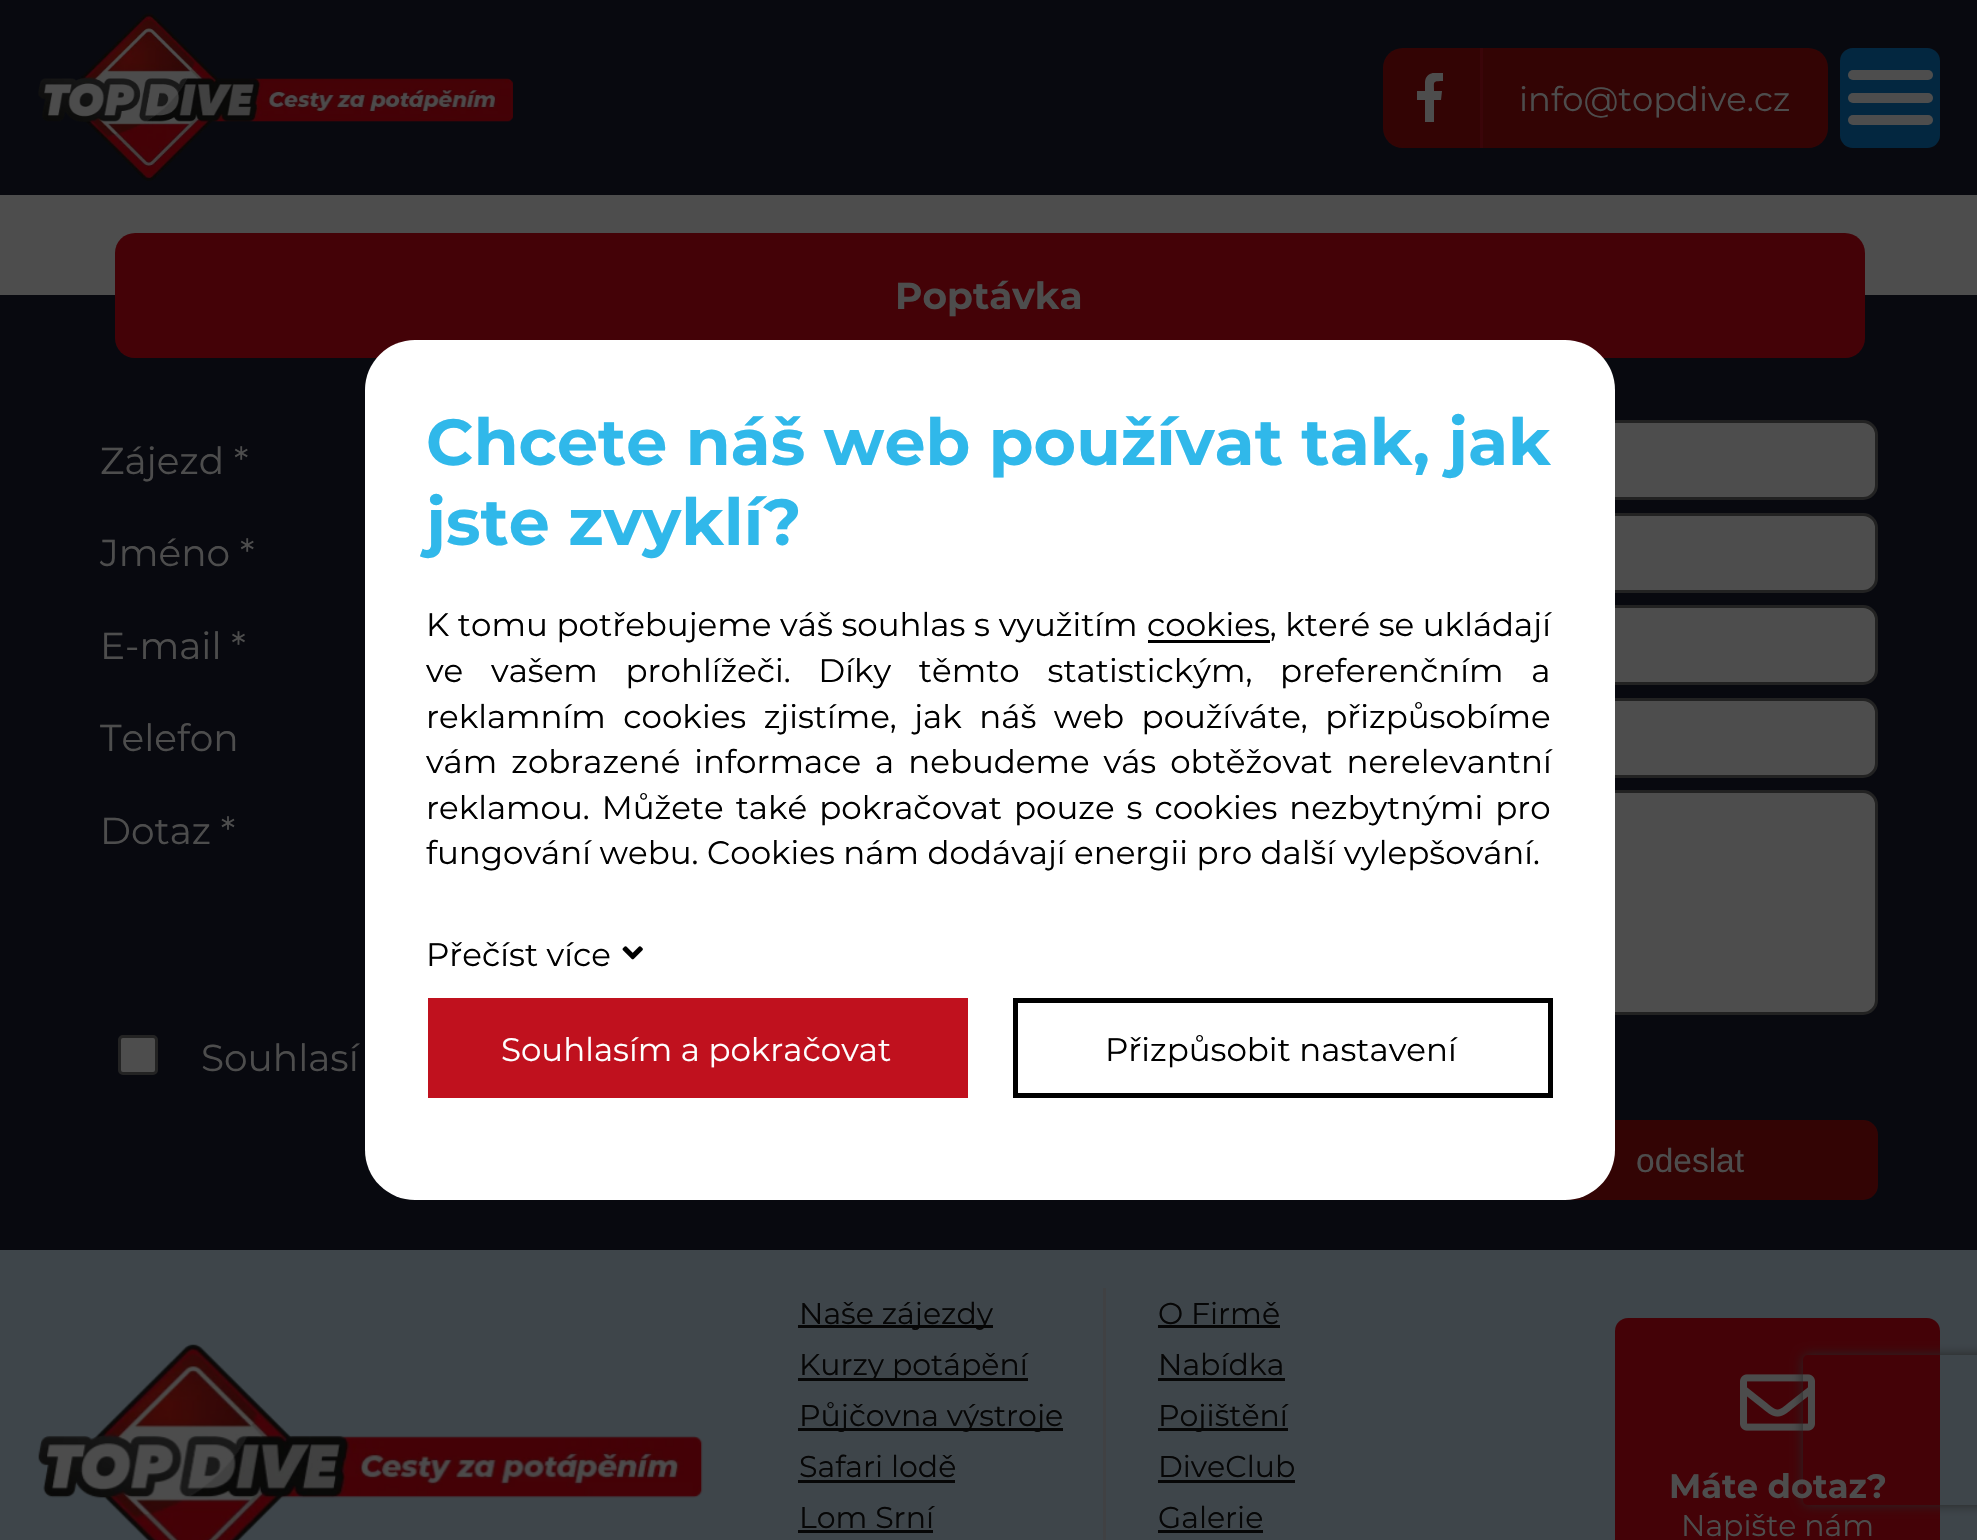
void draw(SkCanvas* canvas) {
    SkPaint paint;
    paint.setAntiAlias(true);
    auto spacedText = [&](const char* s, float x, float y, const SkFont& font, const SkPaint& ink, float letter, float word) {
        std::vector<SkGlyphID> glyphs(font.countText(s, strlen(s), SkTextEncoding::kUTF8));
        std::vector<float> xs(glyphs.size());
        font.textToGlyphs(s, strlen(s), SkTextEncoding::kUTF8, glyphs);
        font.getXPos(glyphs, xs, x);
        float extra = 0;
        for (size_t i = 0; i < glyphs.size(); i++) {
            xs[i] += extra;
            extra += letter + word * (glyphs[i] == font.unicharToGlyph(' '));
        }
        canvas->drawTextBlob(SkTextBlob::MakeFromPosHGlyphs(glyphs, xs, y, font), 0, 0, ink);
    };
    canvas->clear(0xFF4D4D4D);
    paint.setColor(0xFF08090F);
    canvas->drawRect(SkRect::MakeXYWH(0, 0, 1977, 195), paint);
    canvas->drawImageRect(SkImages::DeferredFromEncodedData(SkData::MakeFromFileName("img1.png")), SkRect::MakeXYWH(38, 13, 475, 168), SkSamplingOptions());
    paint.setColor(0xFF330404);
    canvas->drawRoundRect(SkRect::MakeXYWH(1383, 48, 445, 100), 20, 20, paint);
    paint.setColor(0xFF3A0509);
    canvas->drawRect(SkRect::MakeXYWH(1480, 48, 3, 100), paint);
    canvas->save();
    canvas->clipRect(SkRect::MakeXYWH(1405, 73, 50, 50));
    paint.setColor(0xFF4D4D4D);
    canvas->drawPath(SkPathBuilder().moveTo(1425, 122).lineTo(1425, 100).lineTo(1417, 100).lineTo(1417, 91).lineTo(1425, 91).lineTo(1425, 82).cubicTo(1426, 72, 1435, 72, 1443, 73).lineTo(1443, 81).cubicTo(1432, 81, 1434, 82, 1434, 91).lineTo(1442, 91).lineTo(1441, 100).lineTo(1434, 100).lineTo(1434, 122).detach(), paint);
    canvas->restore();
    SkFont font1(fontMgr->matchFamilyStyle("Montserrat", SkFontStyle(100, SkFontStyle::kNormal_Width, SkFontStyle::kUpright_Slant)), 33.75f);
    font1.setSubpixel(true);
    canvas->drawString("info@topdive.cz", 1519, 111, font1, paint);
    paint.setColor(0xFF032740);
    canvas->drawRoundRect(SkRect::MakeXYWH(1840, 48, 100, 100), 13, 13, paint);
    paint.setColor(0xFF4D4D4D);
    canvas->drawRoundRect(SkRect::MakeXYWH(1848, 70, 85, 10), 5, 5, paint);
    canvas->drawRoundRect(SkRect::MakeXYWH(1848, 93, 85, 10), 5, 5, paint);
    canvas->drawRoundRect(SkRect::MakeXYWH(1848, 115, 85, 10), 5, 5, paint);
    paint.setColor(0xFF08090F);
    canvas->drawRect(SkRect::MakeXYWH(0, 295, 1977, 955), paint);
    paint.setColor(0xFF440207);
    canvas->drawRoundRect(SkRect::MakeXYWH(115, 233, 1750, 125), 20, 20, paint);
    SkFont font2(fontMgr->matchFamilyStyle("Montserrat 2", SkFontStyle(100, SkFontStyle::kNormal_Width, SkFontStyle::kUpright_Slant)), 37.5f);
    font2.setSubpixel(true);
    paint.setColor(0xFF4D4D4D);
    canvas->drawString("Poptávka", 895, 309, font2, paint);
    SkFont font3(fontMgr->matchFamilyStyle("Montserrat", SkFontStyle(100, SkFontStyle::kNormal_Width, SkFontStyle::kUpright_Slant)), 37.5f);
    font3.setSubpixel(true);
    canvas->drawString("Zájezd *", 100, 474, font3, paint);
    canvas->drawRoundRect(SkRect::MakeXYWH(474.5f, 421.5f, 1402, 77), 13.5f, 13.5f, paint);
    paint.setStyle(SkPaint::kStroke_Style);
    paint.setStrokeWidth(3);
    paint.setColor(0xFF222222);
    canvas->drawRoundRect(SkRect::MakeXYWH(474.5f, 421.5f, 1402, 77), 13.5f, 13.5f, paint);
    paint.setStyle(SkPaint::kFill_Style);
    paint.setColor(0xFF4D4D4D);
    canvas->drawString("Jméno *", 100, 566, font3, paint);
    canvas->drawRoundRect(SkRect::MakeXYWH(474.5f, 514.5f, 1402, 77), 13.5f, 13.5f, paint);
    paint.setStyle(SkPaint::kStroke_Style);
    paint.setColor(0xFF222222);
    canvas->drawRoundRect(SkRect::MakeXYWH(474.5f, 514.5f, 1402, 77), 13.5f, 13.5f, paint);
    paint.setStyle(SkPaint::kFill_Style);
    paint.setColor(0xFF4D4D4D);
    canvas->drawString("E-mail *", 100, 659, font3, paint);
    canvas->drawRoundRect(SkRect::MakeXYWH(474.5f, 606.5f, 1402, 77), 13.5f, 13.5f, paint);
    paint.setStyle(SkPaint::kStroke_Style);
    paint.setColor(0xFF222222);
    canvas->drawRoundRect(SkRect::MakeXYWH(474.5f, 606.5f, 1402, 77), 13.5f, 13.5f, paint);
    paint.setStyle(SkPaint::kFill_Style);
    paint.setColor(0xFF4D4D4D);
    canvas->drawString("Telefon", 100, 751, font3, paint);
    canvas->drawRoundRect(SkRect::MakeXYWH(474.5f, 699.5f, 1402, 77), 13.5f, 13.5f, paint);
    paint.setStyle(SkPaint::kStroke_Style);
    paint.setColor(0xFF222222);
    canvas->drawRoundRect(SkRect::MakeXYWH(474.5f, 699.5f, 1402, 77), 13.5f, 13.5f, paint);
    paint.setStyle(SkPaint::kFill_Style);
    paint.setColor(0xFF4D4D4D);
    canvas->drawString("Dotaz *", 100, 844, font3, paint);
    canvas->drawRoundRect(SkRect::MakeXYWH(474.5f, 791.5f, 1402, 222), 13.5f, 13.5f, paint);
    paint.setStyle(SkPaint::kStroke_Style);
    paint.setColor(0xFF222222);
    canvas->drawRoundRect(SkRect::MakeXYWH(474.5f, 791.5f, 1402, 222), 13.5f, 13.5f, paint);
    paint.setStyle(SkPaint::kFill_Style);
    paint.setColor(0xFF4D4D4D);
    canvas->drawRoundRect(SkRect::MakeXYWH(119.5f, 1036.5f, 37, 37), 3.5f, 3.5f, paint);
    paint.setStyle(SkPaint::kStroke_Style);
    paint.setColor(0xFF232323);
    canvas->drawRoundRect(SkRect::MakeXYWH(119.5f, 1036.5f, 37, 37), 3.5f, 3.5f, paint);
    paint.setStyle(SkPaint::kFill_Style);
    paint.setColor(0xFF4D4D4D);
    canvas->drawString("Souhlasí", 201, 1071, font3, paint);
    paint.setColor(0xFF330404);
    canvas->drawRoundRect(SkRect::MakeXYWH(1504.5f, 1121.5f, 372, 77), 13.5f, 13.5f, paint);
    paint.setStyle(SkPaint::kStroke_Style);
    canvas->drawRoundRect(SkRect::MakeXYWH(1504.5f, 1121.5f, 372, 77), 13.5f, 13.5f, paint);
    SkFont font4(fontMgr->matchFamilyStyle("Liberation Sans", SkFontStyle::Normal()), 33.5f);
    font4.setSubpixel(true);
    paint.setStyle(SkPaint::kFill_Style);
    paint.setColor(0xFF4D4D4D);
    canvas->drawString("odeslat", 1636, 1172, font4, paint);
    paint.setColor(0xFF3E454A);
    canvas->drawRect(SkRect::MakeXYWH(0, 1250, 1977, 290), paint);
    paint.setColor(0xFF440207);
    canvas->drawRoundRect(SkRect::MakeXYWH(1615, 1318, 325, 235), 13, 13, paint);
    canvas->drawImageRect(SkImages::DeferredFromEncodedData(SkData::MakeFromFileName("img3.png")), SkRect::MakeXYWH(1740, 1374, 75, 57), SkSamplingOptions());
    canvas->save();
    canvas->clipPath(SkPathBuilder(SkPathFillType::kEvenOdd).moveTo(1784, 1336).lineTo(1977, 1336).lineTo(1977, 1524).lineTo(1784, 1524).close().moveTo(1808, 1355).lineTo(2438, 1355).cubicTo(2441, 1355, 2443, 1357, 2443, 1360).lineTo(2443, 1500).cubicTo(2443, 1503, 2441, 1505, 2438, 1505).lineTo(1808, 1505).cubicTo(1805, 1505, 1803, 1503, 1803, 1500).lineTo(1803, 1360).cubicTo(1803, 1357, 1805, 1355, 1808, 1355).close().detach(), true);
    paint.setColor(0xFF262626);
    paint.setMaskFilter(SkMaskFilter::MakeBlur(kNormal_SkBlurStyle, 6));
    canvas->drawRoundRect(SkRect::MakeXYWH(1803, 1355, 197, 150), 5, 5, paint);
    paint.setMaskFilter(nullptr);
    canvas->restore();
    canvas->drawImageRect(SkImages::DeferredFromEncodedData(SkData::MakeFromFileName("img2.png")), SkRect::MakeXYWH(38, 1344, 665, 196), SkSamplingOptions());
    paint.setColor(0xFF404143);
    canvas->drawRect(SkRect::MakeXYWH(1103, 1288, 3, 252), paint);
    paint.setColor(0xFF060606);
    canvas->drawRect(SkRect::MakeXYWH(798, 1325, 195, 3), paint);
    SkFont font5(fontMgr->matchFamilyStyle("Montserrat", SkFontStyle(100, SkFontStyle::kNormal_Width, SkFontStyle::kUpright_Slant)), 30);
    font5.setSubpixel(true);
    canvas->drawString("Naše zájezdy", 799, 1324, font5, paint);
    canvas->drawRect(SkRect::MakeXYWH(798, 1378, 230, 3), paint);
    canvas->drawString("Kurzy potápění", 799, 1375, font5, paint);
    canvas->drawRect(SkRect::MakeXYWH(798, 1428, 265, 3), paint);
    canvas->drawString("Půjčovna výstroje", 799, 1426, font5, paint);
    canvas->drawString("Safari lodě", 799, 1477, font5, paint);
    canvas->drawRect(SkRect::MakeXYWH(798, 1480, 157, 3), paint);
    canvas->drawString("Lom Srní", 799, 1528, font5, paint);
    canvas->drawRect(SkRect::MakeXYWH(798, 1530, 135, 3), paint);
    canvas->drawString("O Firmě", 1158, 1324, font5, paint);
    canvas->drawRect(SkRect::MakeXYWH(1158, 1325, 122, 3), paint);
    canvas->drawString("Nabídka", 1158, 1375, font5, paint);
    canvas->drawRect(SkRect::MakeXYWH(1158, 1378, 127, 3), paint);
    canvas->drawRect(SkRect::MakeXYWH(1158, 1428, 130, 3), paint);
    canvas->drawString("Pojištění", 1158, 1426, font5, paint);
    canvas->drawString("DiveClub", 1158, 1477, font5, paint);
    canvas->drawRect(SkRect::MakeXYWH(1158, 1480, 137, 3), paint);
    canvas->drawString("Galerie", 1158, 1528, font5, paint);
    canvas->drawRect(SkRect::MakeXYWH(1158, 1530, 105, 3), paint);
    SkFont font6(fontMgr->matchFamilyStyle("Montserrat 2", SkFontStyle(100, SkFontStyle::kNormal_Width, SkFontStyle::kUpright_Slant)), 33.75f);
    font6.setSubpixel(true);
    paint.setColor(0xFF4D4D4D);
    canvas->drawString("Máte dotaz?", 1669, 1498, font6, paint);
    canvas->drawString("Napište nám", 1681, 1536, font5, paint);
    paint.setColor(0xFFFFFFFF);
    canvas->drawRoundRect(SkRect::MakeXYWH(365, 340, 1250, 860), 50, 50, paint);
    SkFont font7(fontMgr->matchFamilyStyle("Montserrat 2", SkFontStyle(100, SkFontStyle::kNormal_Width, SkFontStyle::kUpright_Slant)), 65);
    font7.setSubpixel(true);
    paint.setColor(0xFF30B8EA);
    canvas->drawString("Chcete náš web používat tak, jak", 426, 465, font7, paint);
    canvas->drawString("jste zvyklí?", 426, 545, font7, paint);
    SkFont font8(fontMgr->matchFamilyStyle("Montserrat", SkFontStyle(100, SkFontStyle::kNormal_Width, SkFontStyle::kUpright_Slant)), 32.5f);
    font8.setSubpixel(true);
    paint.setColor(0xFF000000);
    spacedText("K tomu potřebujeme váš souhlas s využitím", 426, 636, font8, paint, 0, 0.25f);
    canvas->drawRect(SkRect::MakeXYWH(1148, 640, 122, 3), paint);
    canvas->drawString("cookies, které se ukládají", 1147, 636, font8, paint);
    spacedText("ve vašem prohlížeči. Díky těmto statistickým, preferenčním a", 426, 682, font8, paint, 0, 19.25f);
    spacedText("reklamním cookies zjistíme, jak náš web používáte, přizpůsobíme", 426, 728, font8, paint, 0, 9);
    spacedText("vám zobrazené informace a nebudeme vás obtěžovat nerelevantní", 426, 773, font8, paint, 0, 5.5f);
    spacedText("reklamou. Můžete také pokračovat pouze s cookies nezbytnými pro", 426, 819, font8, paint, 0, 3.5f);
    canvas->drawString("fungování webu. Cookies nám dodávají energii pro další vylepšování.", 426, 864, font8, paint);
    canvas->drawString("Přečíst více", 426, 966, font8, paint);
    canvas->drawImageRect(SkImages::DeferredFromEncodedData(SkData::MakeFromFileName("img4.png")), SkRect::MakeXYWH(622, 946, 21, 14), SkSamplingOptions());
    paint.setColor(0xFFC0111E);
    canvas->drawRect(SkRect::MakeXYWH(428, 998, 540, 100), paint);
    paint.setColor(0xFFFFFFFF);
    canvas->drawString("Souhlasím a pokračovat", 501, 1061, font8, paint);
    paint.setStyle(SkPaint::kStroke_Style);
    paint.setStrokeWidth(5);
    paint.setColor(0xFF000000);
    canvas->drawRect(SkRect::MakeXYWH(1015.5f, 1000.5f, 535, 95), paint);
    paint.setStyle(SkPaint::kFill_Style);
    canvas->drawString("Přizpůsobit nastavení", 1105, 1061, font8, paint);
}
